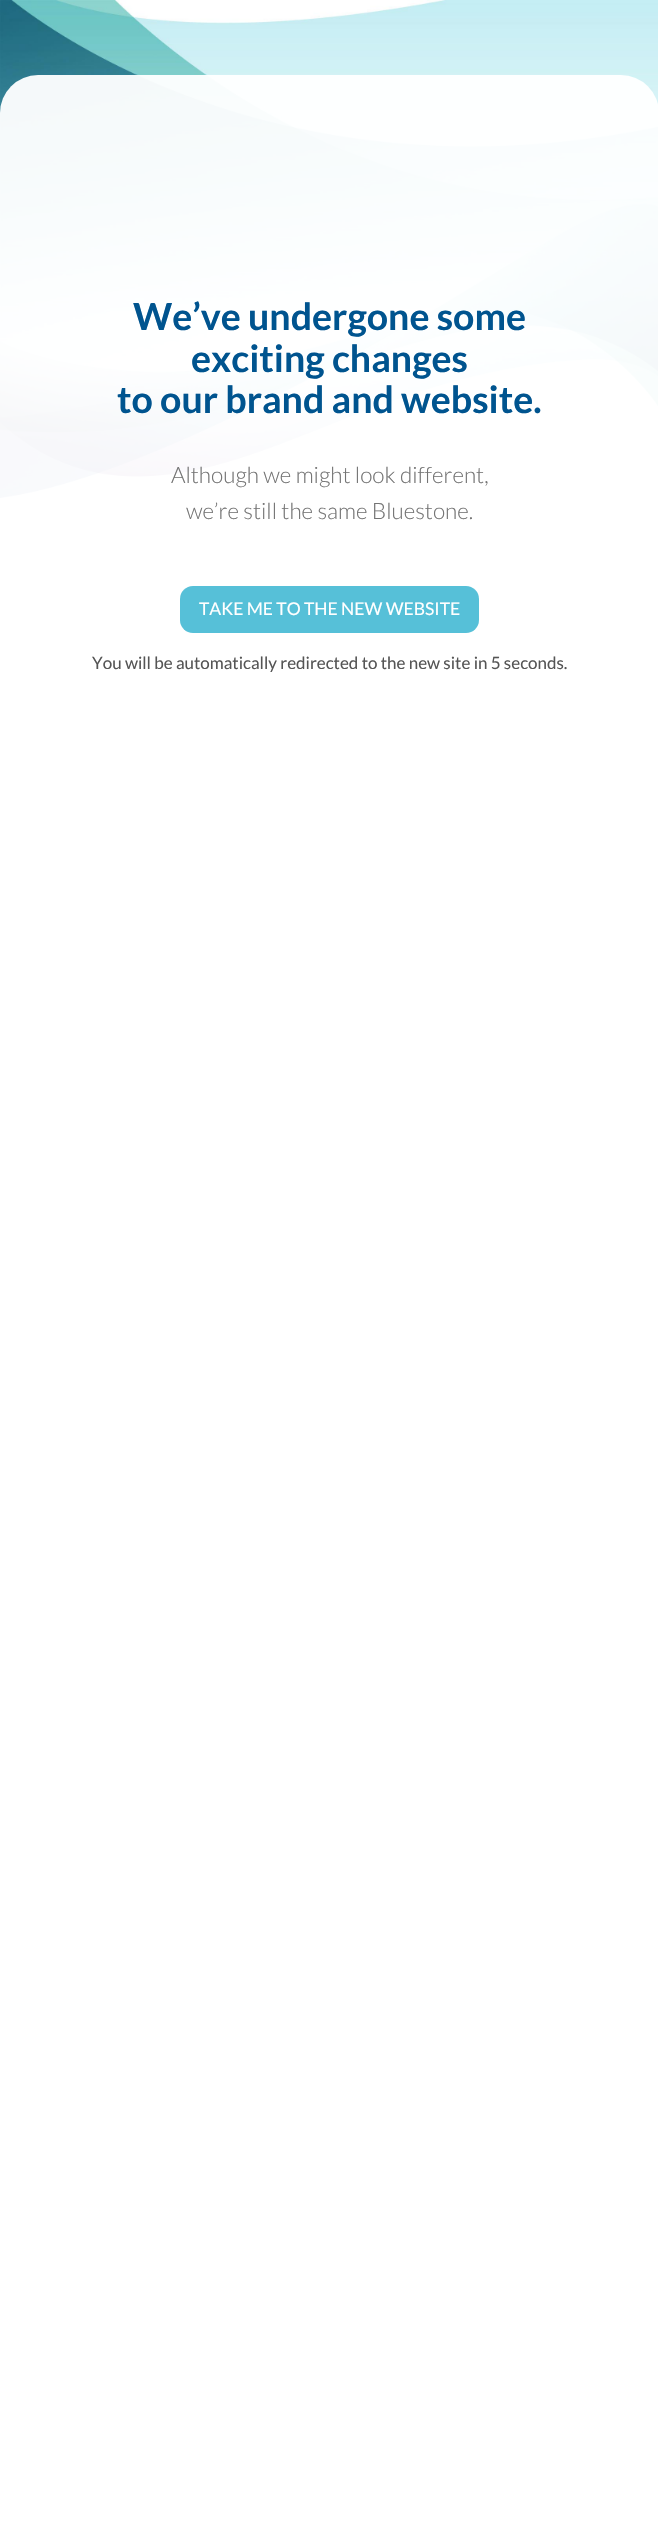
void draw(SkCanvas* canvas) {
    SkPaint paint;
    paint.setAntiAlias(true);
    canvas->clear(0xFFFFFFFF);
    canvas->drawImageRect(SkImages::DeferredFromEncodedData(SkData::MakeFromFileName("img1.png")), SkRect::MakeXYWH(0, 0, 658, 502), SkSamplingOptions());
    paint.setColor(0xF2FFFFFF);
    canvas->drawRoundRect(SkRect::MakeXYWH(0, 75, 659, 679), 38, 38, paint);
    SkFont font1(fontMgr->matchFamilyStyle("Lato", SkFontStyle::Bold()), 37.5f);
    font1.setSubpixel(true);
    paint.setColor(0xFF00548F);
    canvas->drawString("We’ve undergone some", 133, 330, font1, paint);
    canvas->drawString("exciting changes", 191, 372, font1, paint);
    canvas->drawString("to our brand and website.", 117, 413, font1, paint);
    SkFont font2(fontMgr->matchFamilyStyle("Lato", SkFontStyle(300, SkFontStyle::kNormal_Width, SkFontStyle::kUpright_Slant)), 22.5f);
    font2.setSubpixel(true);
    paint.setColor(0xFF747474);
    canvas->drawString("Although we might look different,", 171, 483, font2, paint);
    canvas->drawString("we’re still the same Bluestone.", 186, 519, font2, paint);
    paint.setColor(0xFF56C0D8);
    canvas->drawRoundRect(SkRect::MakeXYWH(180, 586, 299, 47), 13, 13, paint);
    SkFont font3(fontMgr->matchFamilyStyle("Lato", SkFontStyle::Normal()), 17.5f);
    font3.setSubpixel(true);
    paint.setColor(0xFFFFFFFF);
    canvas->drawString("TAKE ME TO THE NEW WEBSITE", 199, 615, font3, paint);
    SkFont font4(fontMgr->matchFamilyStyle("Lato", SkFontStyle::Normal()), 17);
    font4.setSubpixel(true);
    paint.setColor(0xFF555555);
    canvas->drawString("You will be automatically redirected to the new site in 5 seconds.", 92, 669, font4, paint);
}
